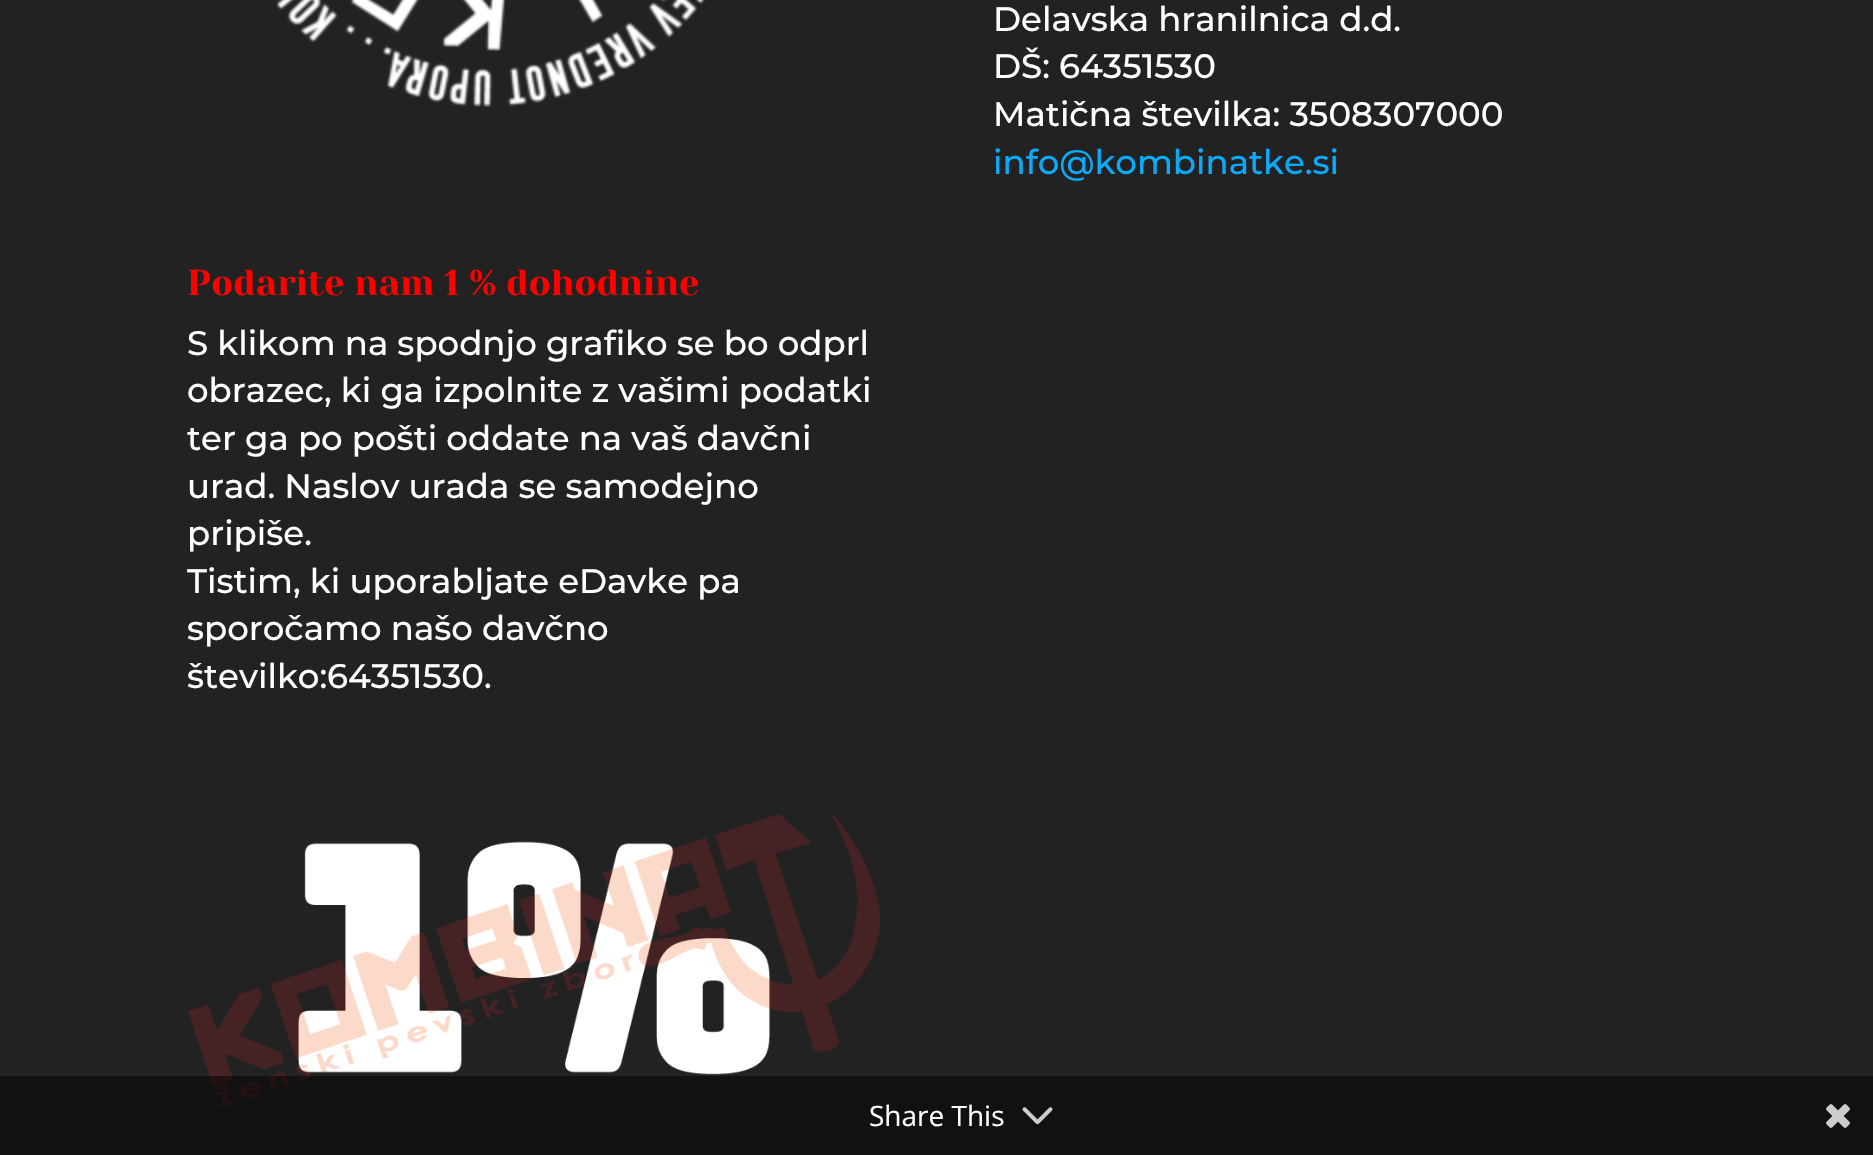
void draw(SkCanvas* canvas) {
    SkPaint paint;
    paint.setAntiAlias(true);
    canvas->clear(0xFF222222);
    canvas->drawImageRect(SkImages::DeferredFromEncodedData(SkData::MakeFromFileName("img1.png")), SkRect::MakeXYWH(276, 0, 429, 107), SkSamplingOptions());
    SkFont font1(fontMgr->matchFamilyStyle("Montserrat", SkFontStyle(500, SkFontStyle::kNormal_Width, SkFontStyle::kUpright_Slant)), 34);
    font1.setSubpixel(true);
    paint.setColor(0xFFFFFFFF);
    canvas->drawString("Delavska hranilnica d.d.", 993, 31, font1, paint);
    canvas->drawString("DŠ: 64351530", 993, 78, font1, paint);
    canvas->drawString("Matična številka: 3508307000", 993, 126, font1, paint);
    paint.setColor(0xFF0AABFC);
    canvas->drawString("info@kombinatke.si", 993, 174, font1, paint);
    SkFont font2(fontMgr->matchFamilyStyle("Yeseva One", SkFontStyle::Normal()), 36);
    font2.setSubpixel(true);
    paint.setColor(0xFFFF0000);
    canvas->drawString("Podarite nam 1 % dohodnine", 187, 295, font2, paint);
    paint.setColor(0xFFFFFFFF);
    canvas->drawString("S klikom na spodnjo grafiko se bo odprl", 187, 355, font1, paint);
    canvas->drawString("obrazec, ki ga izpolnite z vašimi podatki", 187, 402, font1, paint);
    canvas->drawString("ter ga po pošti oddate na vaš davčni", 187, 450, font1, paint);
    canvas->drawString("urad. Naslov urada se samodejno", 187, 498, font1, paint);
    canvas->drawString("pripiše.", 187, 545, font1, paint);
    canvas->drawString("Tistim, ki uporabljate eDavke pa", 187, 593, font1, paint);
    canvas->drawString("sporočamo našo davčno", 187, 640, font1, paint);
    canvas->drawString("številko:64351530.", 187, 688, font1, paint);
    canvas->drawImageRect(SkImages::DeferredFromEncodedData(SkData::MakeFromFileName("img2.png")), SkRect::MakeXYWH(188, 814, 692, 294), SkSamplingOptions());
    paint.setColor(0x80000000);
    canvas->drawRect(SkRect::MakeXYWH(0, 1076, 1873, 79), paint);
    SkFont font3(fontMgr->matchFamilyStyle("Open Sans", SkFontStyle::Normal()), 28);
    font3.setSubpixel(true);
    paint.setColor(0xFFFFFFFF);
    canvas->drawString("Share This", 869, 1126, font3, paint);
    canvas->drawImageRect(SkImages::DeferredFromEncodedData(SkData::MakeFromFileName("img3.png")), SkRect::MakeXYWH(1022, 1107, 31, 18), SkSamplingOptions());
    canvas->drawImageRect(SkImages::DeferredFromEncodedData(SkData::MakeFromFileName("img4.png")), SkRect::MakeXYWH(1826, 1104, 24, 24), SkSamplingOptions());
}
